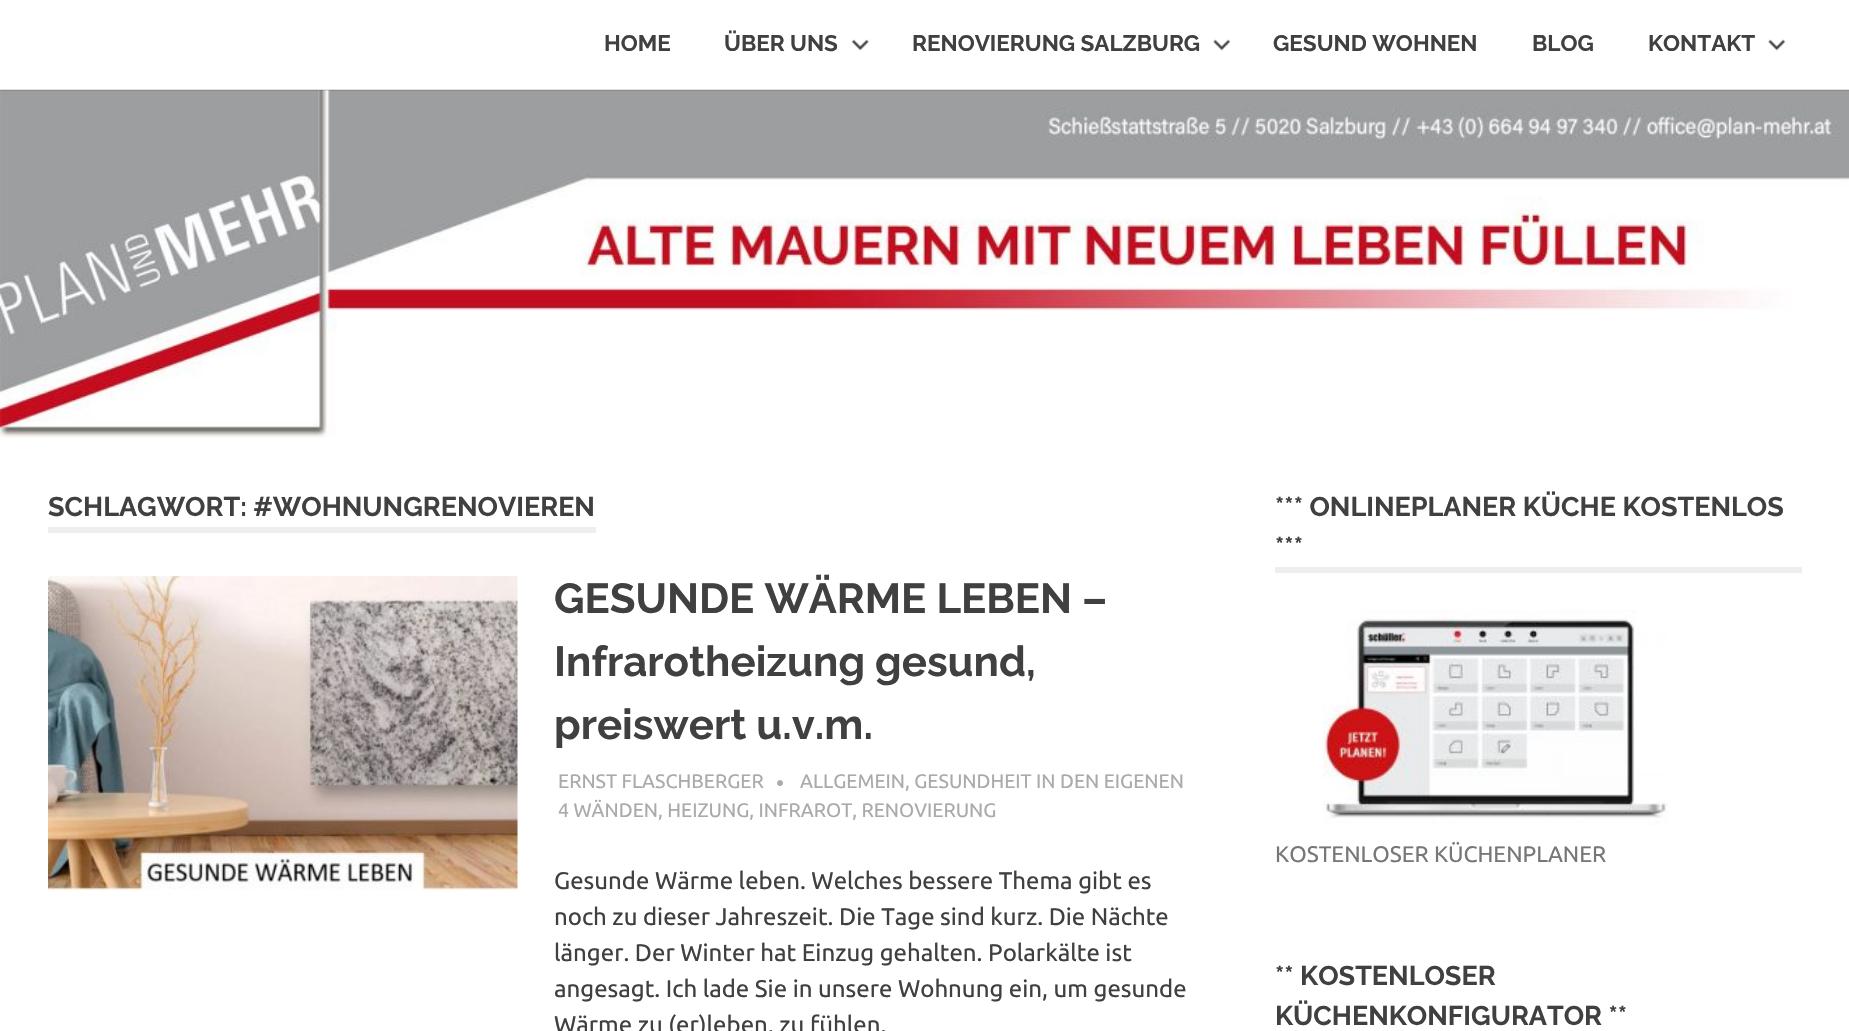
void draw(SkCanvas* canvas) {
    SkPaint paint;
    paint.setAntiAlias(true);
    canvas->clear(0xFFFFFFFF);
    canvas->drawImageRect(SkImages::DeferredFromEncodedData(SkData::MakeFromFileName("img3.png")), SkRect::MakeXYWH(0, 90, 1849, 348), SkSamplingOptions());
    paint.setColor(0x1F000000);
    canvas->drawRect(SkRect::MakeXYWH(0, 89, 1849, 2), paint);
    SkFont font1(fontMgr->matchFamilyStyle("Raleway", SkFontStyle(100, SkFontStyle::kNormal_Width, SkFontStyle::kUpright_Slant)), 22.5f);
    font1.setSubpixel(true);
    paint.setColor(0xFF404040);
    canvas->drawString("HOME", 604, 51, font1, paint);
    canvas->drawString("ÜBER UNS", 724, 51, font1, paint);
    canvas->drawImageRect(SkImages::DeferredFromEncodedData(SkData::MakeFromFileName("img1.png")), SkRect::MakeXYWH(851, 39, 18, 12), SkSamplingOptions());
    canvas->drawString("RENOVIERUNG SALZBURG", 912, 51, font1, paint);
    canvas->drawImageRect(SkImages::DeferredFromEncodedData(SkData::MakeFromFileName("img2.png")), SkRect::MakeXYWH(1213, 39, 18, 12), SkSamplingOptions());
    canvas->drawString("GESUND WOHNEN", 1273, 51, font1, paint);
    canvas->drawString("BLOG", 1532, 51, font1, paint);
    canvas->drawString("KONTAKT", 1648, 51, font1, paint);
    canvas->drawImageRect(SkImages::DeferredFromEncodedData(SkData::MakeFromFileName("img2.png")), SkRect::MakeXYWH(1768, 39, 18, 12), SkSamplingOptions());
    paint.setColor(0xFFEEEEEE);
    canvas->drawRect(SkRect::MakeXYWH(48, 527, 548, 6), paint);
    SkFont font2(fontMgr->matchFamilyStyle("Raleway", SkFontStyle(100, SkFontStyle::kNormal_Width, SkFontStyle::kUpright_Slant)), 27);
    font2.setSubpixel(true);
    paint.setColor(0xFF404040);
    canvas->drawString("SCHLAGWORT: #WOHNUNGRENOVIEREN", 48, 516, font2, paint);
    canvas->drawImageRect(SkImages::DeferredFromEncodedData(SkData::MakeFromFileName("img4.png")), SkRect::MakeXYWH(48, 576, 470, 314), SkSamplingOptions());
    SkFont font3(fontMgr->matchFamilyStyle("Raleway", SkFontStyle(100, SkFontStyle::kNormal_Width, SkFontStyle::kUpright_Slant)), 42);
    font3.setSubpixel(true);
    canvas->drawString("GESUNDE WÄRME LEBEN –", 554, 613, font3, paint);
    canvas->drawString("Infrarotheizung gesund,", 554, 676, font3, paint);
    canvas->drawString("preiswert u.v.m.", 554, 739, font3, paint);
    SkFont font4(fontMgr->matchFamilyStyle("Ubuntu", SkFontStyle::Normal()), 19.5f);
    font4.setSubpixel(true);
    paint.setColor(0xFFAAAAAA);
    canvas->drawString("ERNST FLASCHBERGER", 558, 788, font4, paint);
    SkFont font5(fontMgr->matchFamilyStyle("Ubuntu", SkFontStyle::Normal()), 22.5f);
    font5.setSubpixel(true);
    canvas->drawString("•", 776, 791, font5, paint);
    canvas->drawString("ALLGEMEIN, GESUNDHEIT IN DEN EIGENEN", 800, 788, font4, paint);
    canvas->drawString("4 WÄNDEN, HEIZUNG, INFRAROT, RENOVIERUNG", 558, 817, font4, paint);
    SkFont font6(fontMgr->matchFamilyStyle("Ubuntu", SkFontStyle::Normal()), 24);
    font6.setSubpixel(true);
    paint.setColor(0xFF404040);
    canvas->drawString("Gesunde Wärme leben. Welches bessere Thema gibt es", 554, 889, font6, paint);
    canvas->drawString("noch zu dieser Jahreszeit. Die Tage sind kurz. Die Nächte", 554, 925, font6, paint);
    canvas->drawString("länger. Der Winter hat Einzug gehalten. Polarkälte ist", 554, 961, font6, paint);
    canvas->drawString("angesagt. Ich lade Sie in unsere Wohnung ein, um gesunde", 554, 997, font6, paint);
    canvas->drawString("Wärme zu (er)leben, zu fühlen.", 554, 1033, font6, paint);
    paint.setColor(0xFFEEEEEE);
    canvas->drawRect(SkRect::MakeXYWH(1275, 567, 527, 6), paint);
    paint.setColor(0xFF404040);
    canvas->drawString("*** ONLINEPLANER KÜCHE KOSTENLOS", 1275, 516, font2, paint);
    canvas->drawString("***", 1275, 556, font2, paint);
    canvas->drawImageRect(SkImages::DeferredFromEncodedData(SkData::MakeFromFileName("img5.png")), SkRect::MakeXYWH(1322, 609, 346, 216), SkSamplingOptions());
    paint.setColor(0xFF777777);
    canvas->drawString("KOSTENLOSER KÜCHENPLANER", 1275, 862, font5, paint);
    paint.setColor(0xFF404040);
    canvas->drawString("** KOSTENLOSER", 1275, 985, font2, paint);
    canvas->drawString("KÜCHENKONFIGURATOR **", 1275, 1025, font2, paint);
}
